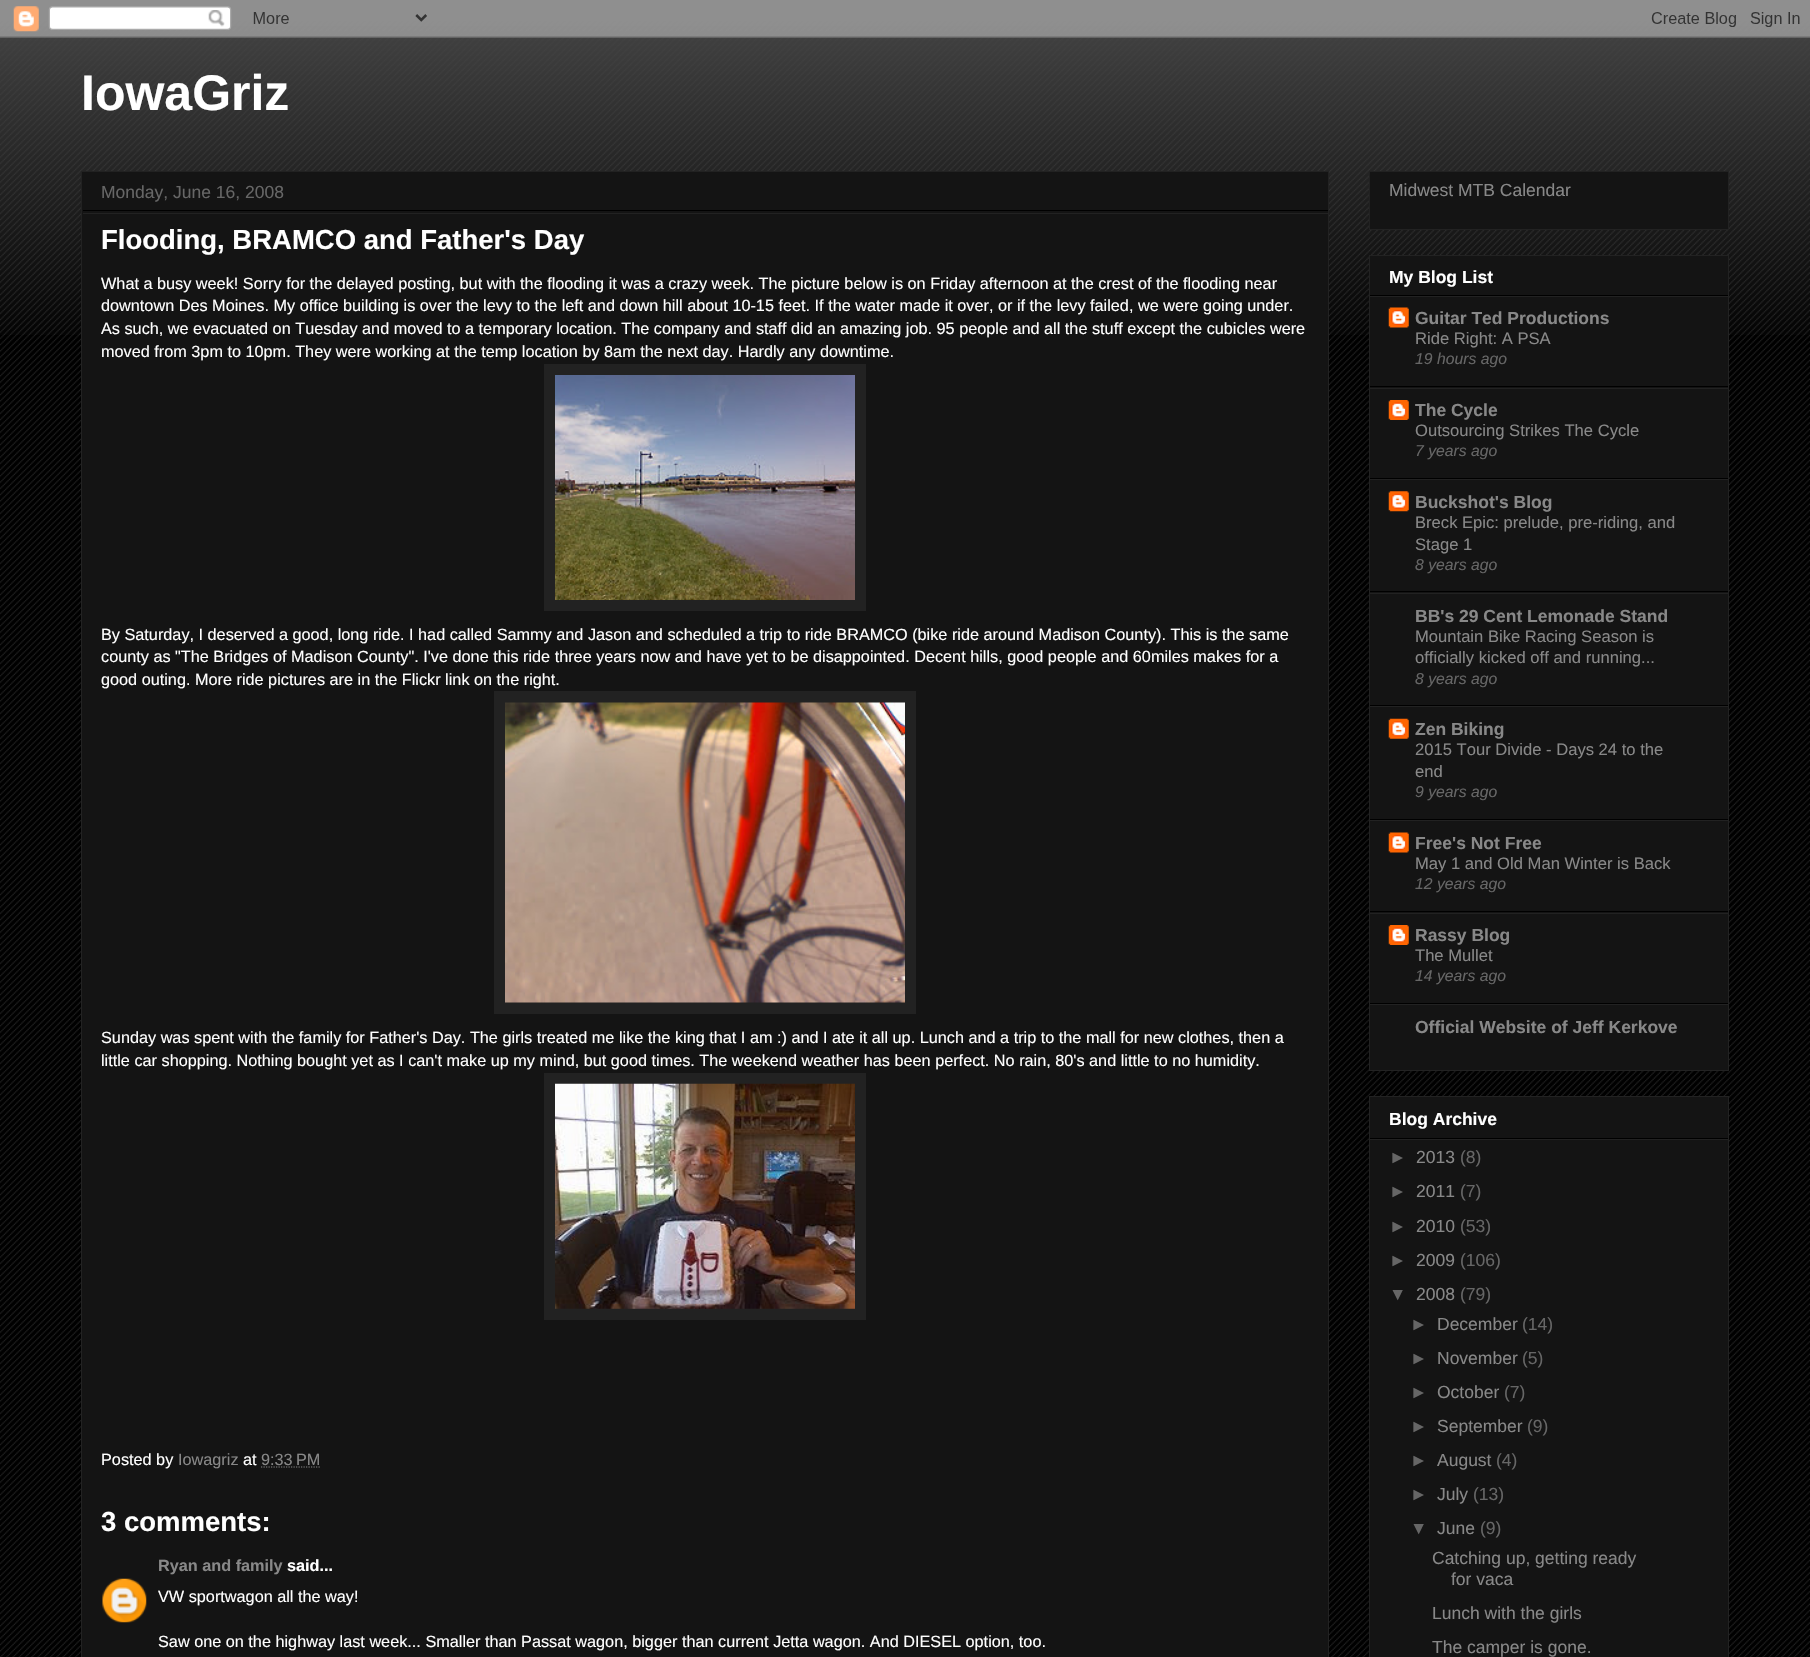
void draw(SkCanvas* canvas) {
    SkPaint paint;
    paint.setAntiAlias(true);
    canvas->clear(0xFF000000);
    canvas->drawImageRect(SkImages::DeferredFromEncodedData(SkData::MakeFromFileName("img1.png")), SkRect::MakeXYWH(0, 16, 1810, 1641), SkSamplingOptions());
    canvas->drawImageRect(SkImages::DeferredFromEncodedData(SkData::MakeFromFileName("img2.png")), SkRect::MakeXYWH(0, 0, 1810, 335), SkSamplingOptions());
    canvas->drawImageRect(SkImages::DeferredFromEncodedData(SkData::MakeFromFileName("img3.png")), SkRect::MakeXYWH(0, 0, 1810, 38), SkSamplingOptions());
    SkFont font1(fontMgr->matchFamilyStyle("Liberation Sans", SkFontStyle::Bold()), 50);
    font1.setSubpixel(true);
    paint.setColor(0xFFFFFFFF);
    canvas->drawString("IowaGriz", 81, 110, font1, paint);
    paint.setColor(0xFF141414);
    canvas->drawRect(SkRect::MakeXYWH(81.5f, 171.5f, 1247, 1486), paint);
    paint.setStyle(SkPaint::kStroke_Style);
    paint.setStrokeWidth(1);
    paint.setColor(0xFF222222);
    canvas->drawRect(SkRect::MakeXYWH(81.5f, 171.5f, 1247, 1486), paint);
    paint.setStyle(SkPaint::kFill_Style);
    paint.setColor(0xFF000000);
    canvas->drawRect(SkRect::MakeXYWH(83, 210, 1245, 1), paint);
    SkFont font2(fontMgr->matchFamilyStyle("Liberation Sans", SkFontStyle::Normal()), 17.5f);
    font2.setSubpixel(true);
    paint.setColor(0xFF666666);
    canvas->drawString("Monday, June 16, 2008", 101, 198, font2, paint);
    paint.setColor(0xFF222222);
    canvas->drawRect(SkRect::MakeXYWH(83, 213, 1245, 1), paint);
    SkFont font3(fontMgr->matchFamilyStyle("Liberation Sans", SkFontStyle::Bold()), 27.5f);
    font3.setSubpixel(true);
    paint.setColor(0xFFFFFFFF);
    canvas->drawString("Flooding, BRAMCO and Father's Day", 101, 249, font3, paint);
    SkFont font4(fontMgr->matchFamilyStyle("Liberation Sans", SkFontStyle::Normal()), 16.25f);
    font4.setSubpixel(true);
    canvas->drawString("What a busy week! Sorry for the delayed posting, but with the flooding it was a crazy week. The picture below is on Friday afternoon at the crest of the flooding near", 101, 289, font4, paint);
    canvas->drawString("downtown Des Moines. My office building is over the levy to the left and down hill about 10-15 feet. If the water made it over, or if the levy failed, we were going under.", 101, 311, font4, paint);
    canvas->drawString("As such, we evacuated on Tuesday and moved to a temporary location. The company and staff did an amazing job. 95 people and all the stuff except the cubicles were", 101, 334, font4, paint);
    canvas->drawString("moved from 3pm to 10pm. They were working at the temp location by 8am the next day. Hardly any downtime.", 101, 357, font4, paint);
    paint.setColor(0xFF222222);
    canvas->drawRect(SkRect::MakeXYWH(544, 364, 322, 247), paint);
    canvas->drawImageRect(SkImages::DeferredFromEncodedData(SkData::MakeFromFileName("img4.png")), SkRect::MakeXYWH(555, 375, 300, 225), SkSamplingOptions());
    paint.setColor(0xFFFFFFFF);
    canvas->drawString("By Saturday, I deserved a good, long ride. I had called Sammy and Jason and scheduled a trip to ride BRAMCO (bike ride around Madison County). This is the same", 101, 640, font4, paint);
    canvas->drawString("county as \"The Bridges of Madison County\". I've done this ride three years now and have yet to be disappointed. Decent hills, good people and 60miles makes for a", 101, 662, font4, paint);
    canvas->drawString("good outing. More ride pictures are in the Flickr link on the right.", 101, 685, font4, paint);
    paint.setColor(0xFF222222);
    canvas->drawRect(SkRect::MakeXYWH(494, 691, 422, 323), paint);
    canvas->drawImageRect(SkImages::DeferredFromEncodedData(SkData::MakeFromFileName("img5.png")), SkRect::MakeXYWH(505, 702, 400, 301), SkSamplingOptions());
    paint.setColor(0xFFFFFFFF);
    canvas->drawString("Sunday was spent with the family for Father's Day. The girls treated me like the king that I am :) and I ate it all up. Lunch and a trip to the mall for new clothes, then a", 101, 1043, font4, paint);
    canvas->drawString("little car shopping. Nothing bought yet as I can't make up my mind, but good times. The weekend weather has been perfect. No rain, 80's and little to no humidity.", 101, 1066, font4, paint);
    paint.setColor(0xFF222222);
    canvas->drawRect(SkRect::MakeXYWH(544, 1073, 322, 247), paint);
    canvas->drawImageRect(SkImages::DeferredFromEncodedData(SkData::MakeFromFileName("img6.png")), SkRect::MakeXYWH(555, 1083, 300, 226), SkSamplingOptions());
    paint.setColor(0xFFFFFFFF);
    canvas->drawString("Posted by", 101, 1465, font4, paint);
    paint.setColor(0xFF888888);
    canvas->drawString("Iowagriz", 178, 1465, font4, paint);
    paint.setColor(0xFFFFFFFF);
    canvas->drawString("at", 243, 1465, font4, paint);
    paint.setColor(0xFF888888);
    canvas->drawString("9:33 PM", 261, 1465, font4, paint);
    paint.setStyle(SkPaint::kStroke_Style);
    paint.setStrokeWidth(1.2f);
    paint.setPathEffect(SkDashPathEffect::Make({{1.25f, 1.25f}}, 0));
    canvas->drawPath(SkPathBuilder().moveTo(261, 1467).lineTo(320.5f, 1467).detach(), paint);
    paint.setPathEffect(nullptr);
    paint.setStyle(SkPaint::kFill_Style);
    paint.setColor(0xFFFFFFFF);
    canvas->drawString("3 comments:", 101, 1531, font3, paint);
    SkFont font5(fontMgr->matchFamilyStyle("Liberation Sans", SkFontStyle::Bold()), 16.25f);
    font5.setSubpixel(true);
    paint.setColor(0xFF888888);
    canvas->drawString("Ryan and family", 158, 1571, font5, paint);
    paint.setColor(0xFFFFFFFF);
    canvas->drawString("said...", 287, 1571, font5, paint);
    canvas->drawImageRect(SkImages::DeferredFromEncodedData(SkData::MakeFromFileName("img7.png")), SkRect::MakeXYWH(102, 1578, 45, 45), SkSamplingOptions());
    canvas->drawString("VW sportwagon all the way!", 158, 1602, font4, paint);
    canvas->drawString("Saw one on the highway last week... Smaller than Passat wagon, bigger than current Jetta wagon. And DIESEL option, too.", 158, 1647, font4, paint);
    paint.setColor(0xFF141414);
    canvas->drawRect(SkRect::MakeXYWH(1369.5f, 171.5f, 359, 58), paint);
    paint.setStyle(SkPaint::kStroke_Style);
    paint.setStrokeWidth(1);
    paint.setColor(0xFF222222);
    canvas->drawRect(SkRect::MakeXYWH(1369.5f, 171.5f, 359, 58), paint);
    paint.setStyle(SkPaint::kFill_Style);
    paint.setColor(0xFF888888);
    canvas->drawString("Midwest MTB Calendar", 1389, 196, font2, paint);
    paint.setColor(0xFF141414);
    canvas->drawRect(SkRect::MakeXYWH(1369.5f, 255.5f, 359, 815), paint);
    paint.setStyle(SkPaint::kStroke_Style);
    paint.setColor(0xFF222222);
    canvas->drawRect(SkRect::MakeXYWH(1369.5f, 255.5f, 359, 815), paint);
    paint.setStyle(SkPaint::kFill_Style);
    paint.setColor(0xFF000000);
    canvas->drawRect(SkRect::MakeXYWH(1370, 295, 358, 1), paint);
    SkFont font6(fontMgr->matchFamilyStyle("Liberation Sans", SkFontStyle::Bold()), 17.5f);
    font6.setSubpixel(true);
    paint.setColor(0xFFFFFFFF);
    canvas->drawString("My Blog List", 1389, 283, font6, paint);
    paint.setColor(0xFF222222);
    canvas->drawRect(SkRect::MakeXYWH(1370, 296, 358, 1), paint);
    paint.setColor(0xFF000000);
    canvas->drawRect(SkRect::MakeXYWH(1370, 386, 358, 1), paint);
    canvas->drawImageRect(SkImages::DeferredFromEncodedData(SkData::MakeFromFileName("img8.png")), SkRect::MakeXYWH(1388, 307, 21, 21), SkSamplingOptions());
    paint.setColor(0xFF888888);
    canvas->drawString("Guitar Ted Productions", 1415, 324, font6, paint);
    SkFont font7(fontMgr->matchFamilyStyle("Liberation Sans", SkFontStyle::Normal()), 16.6f);
    font7.setSubpixel(true);
    canvas->drawString("Ride Right: A PSA", 1415, 344, font7, paint);
    SkFont font8(fontMgr->matchFamilyStyle("Liberation Sans", SkFontStyle::Italic()), 15.75f);
    font8.setSubpixel(true);
    paint.setColor(0xFF666666);
    canvas->drawString("19 hours ago", 1415, 364, font8, paint);
    paint.setColor(0xFF222222);
    canvas->drawRect(SkRect::MakeXYWH(1370, 388, 358, 1), paint);
    paint.setColor(0xFF000000);
    canvas->drawRect(SkRect::MakeXYWH(1370, 478, 358, 1), paint);
    canvas->drawImageRect(SkImages::DeferredFromEncodedData(SkData::MakeFromFileName("img9.png")), SkRect::MakeXYWH(1388, 400, 21, 20), SkSamplingOptions());
    paint.setColor(0xFF888888);
    canvas->drawString("The Cycle", 1415, 416, font6, paint);
    canvas->drawString("Outsourcing Strikes The Cycle", 1415, 436, font7, paint);
    paint.setColor(0xFF666666);
    canvas->drawString("7 years ago", 1415, 456, font8, paint);
    paint.setColor(0xFF222222);
    canvas->drawRect(SkRect::MakeXYWH(1370, 479, 358, 1), paint);
    paint.setColor(0xFF000000);
    canvas->drawRect(SkRect::MakeXYWH(1370, 591, 358, 1), paint);
    canvas->drawImageRect(SkImages::DeferredFromEncodedData(SkData::MakeFromFileName("img10.png")), SkRect::MakeXYWH(1388, 491, 21, 21), SkSamplingOptions());
    paint.setColor(0xFF888888);
    canvas->drawString("Buckshot's Blog", 1415, 508, font6, paint);
    canvas->drawString("Breck Epic: prelude, pre-riding, and", 1415, 528, font7, paint);
    canvas->drawString("Stage 1", 1415, 550, font7, paint);
    paint.setColor(0xFF666666);
    canvas->drawString("8 years ago", 1415, 570, font8, paint);
    paint.setColor(0xFF222222);
    canvas->drawRect(SkRect::MakeXYWH(1370, 593, 358, 1), paint);
    paint.setColor(0xFF000000);
    canvas->drawRect(SkRect::MakeXYWH(1370, 705, 358, 1), paint);
    paint.setColor(0xFF888888);
    canvas->drawString("BB's 29 Cent Lemonade Stand", 1415, 622, font6, paint);
    canvas->drawString("Mountain Bike Racing Season is", 1415, 642, font7, paint);
    canvas->drawString("officially kicked off and running...", 1415, 663, font7, paint);
    paint.setColor(0xFF666666);
    canvas->drawString("8 years ago", 1415, 684, font8, paint);
    paint.setColor(0xFF222222);
    canvas->drawRect(SkRect::MakeXYWH(1370, 706, 358, 1), paint);
    paint.setColor(0xFF000000);
    canvas->drawRect(SkRect::MakeXYWH(1370, 819, 358, 1), paint);
    canvas->drawImageRect(SkImages::DeferredFromEncodedData(SkData::MakeFromFileName("img11.png")), SkRect::MakeXYWH(1388, 718, 21, 21), SkSamplingOptions());
    paint.setColor(0xFF888888);
    canvas->drawString("Zen Biking", 1415, 735, font6, paint);
    canvas->drawString("2015 Tour Divide - Days 24 to the", 1415, 755, font7, paint);
    canvas->drawString("end", 1415, 777, font7, paint);
    paint.setColor(0xFF666666);
    canvas->drawString("9 years ago", 1415, 797, font8, paint);
    paint.setColor(0xFF222222);
    canvas->drawRect(SkRect::MakeXYWH(1370, 820, 358, 1), paint);
    paint.setColor(0xFF000000);
    canvas->drawRect(SkRect::MakeXYWH(1370, 911, 358, 1), paint);
    canvas->drawImageRect(SkImages::DeferredFromEncodedData(SkData::MakeFromFileName("img8.png")), SkRect::MakeXYWH(1388, 832, 21, 21), SkSamplingOptions());
    paint.setColor(0xFF888888);
    canvas->drawString("Free's Not Free", 1415, 849, font6, paint);
    canvas->drawString("May 1 and Old Man Winter is Back", 1415, 869, font7, paint);
    paint.setColor(0xFF666666);
    canvas->drawString("12 years ago", 1415, 889, font8, paint);
    paint.setColor(0xFF222222);
    canvas->drawRect(SkRect::MakeXYWH(1370, 913, 358, 1), paint);
    paint.setColor(0xFF000000);
    canvas->drawRect(SkRect::MakeXYWH(1370, 1003, 358, 1), paint);
    canvas->drawImageRect(SkImages::DeferredFromEncodedData(SkData::MakeFromFileName("img9.png")), SkRect::MakeXYWH(1388, 925, 21, 20), SkSamplingOptions());
    paint.setColor(0xFF888888);
    canvas->drawString("Rassy Blog", 1415, 941, font6, paint);
    canvas->drawString("The Mullet", 1415, 961, font7, paint);
    paint.setColor(0xFF666666);
    canvas->drawString("14 years ago", 1415, 981, font8, paint);
    paint.setColor(0xFF222222);
    canvas->drawRect(SkRect::MakeXYWH(1370, 1004, 358, 1), paint);
    paint.setColor(0xFF888888);
    canvas->drawString("Official Website of Jeff Kerkove", 1415, 1033, font6, paint);
    paint.setColor(0xFF141414);
    canvas->drawRect(SkRect::MakeXYWH(1369.5f, 1096.5f, 359, 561), paint);
    paint.setStyle(SkPaint::kStroke_Style);
    paint.setColor(0xFF222222);
    canvas->drawRect(SkRect::MakeXYWH(1369.5f, 1096.5f, 359, 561), paint);
    paint.setStyle(SkPaint::kFill_Style);
    paint.setColor(0xFF000000);
    canvas->drawRect(SkRect::MakeXYWH(1370, 1138, 358, 1), paint);
    paint.setColor(0xFFFFFFFF);
    canvas->drawString("Blog Archive", 1389, 1125, font6, paint);
    paint.setColor(0xFF222222);
    canvas->drawRect(SkRect::MakeXYWH(1370, 1139, 358, 1), paint);
    paint.setColor(0xFF666666);
    canvas->drawString("►", 1389, 1163, font2, paint);
    paint.setColor(0xFF888888);
    canvas->drawString("2013", 1416, 1163, font2, paint);
    paint.setColor(0xFF666666);
    canvas->drawString("(8)", 1460, 1163, font2, paint);
    canvas->drawString("►", 1389, 1197, font2, paint);
    paint.setColor(0xFF888888);
    canvas->drawString("2011", 1416, 1197, font2, paint);
    paint.setColor(0xFF666666);
    canvas->drawString("(7)", 1460, 1197, font2, paint);
    canvas->drawString("►", 1389, 1232, font2, paint);
    paint.setColor(0xFF888888);
    canvas->drawString("2010", 1416, 1232, font2, paint);
    paint.setColor(0xFF666666);
    canvas->drawString("(53)", 1460, 1232, font2, paint);
    canvas->drawString("►", 1389, 1266, font2, paint);
    paint.setColor(0xFF888888);
    canvas->drawString("2009", 1416, 1266, font2, paint);
    paint.setColor(0xFF666666);
    canvas->drawString("(106)", 1460, 1266, font2, paint);
    canvas->drawString("▼", 1389, 1300, font2, paint);
    paint.setColor(0xFF888888);
    canvas->drawString("2008", 1416, 1300, font2, paint);
    paint.setColor(0xFF666666);
    canvas->drawString("(79)", 1460, 1300, font2, paint);
    canvas->drawString("►", 1410, 1330, font2, paint);
    paint.setColor(0xFF888888);
    canvas->drawString("December", 1437, 1330, font2, paint);
    paint.setColor(0xFF666666);
    canvas->drawString("(14)", 1522, 1330, font2, paint);
    canvas->drawString("►", 1410, 1364, font2, paint);
    paint.setColor(0xFF888888);
    canvas->drawString("November", 1437, 1364, font2, paint);
    paint.setColor(0xFF666666);
    canvas->drawString("(5)", 1522, 1364, font2, paint);
    canvas->drawString("►", 1410, 1398, font2, paint);
    paint.setColor(0xFF888888);
    canvas->drawString("October", 1437, 1398, font2, paint);
    paint.setColor(0xFF666666);
    canvas->drawString("(7)", 1504, 1398, font2, paint);
    canvas->drawString("►", 1410, 1432, font2, paint);
    paint.setColor(0xFF888888);
    canvas->drawString("September", 1437, 1432, font2, paint);
    paint.setColor(0xFF666666);
    canvas->drawString("(9)", 1527, 1432, font2, paint);
    canvas->drawString("►", 1410, 1466, font2, paint);
    paint.setColor(0xFF888888);
    canvas->drawString("August", 1437, 1466, font2, paint);
    paint.setColor(0xFF666666);
    canvas->drawString("(4)", 1496, 1466, font2, paint);
    canvas->drawString("►", 1410, 1500, font2, paint);
    paint.setColor(0xFF888888);
    canvas->drawString("July", 1437, 1500, font2, paint);
    paint.setColor(0xFF666666);
    canvas->drawString("(13)", 1473, 1500, font2, paint);
    canvas->drawString("▼", 1410, 1534, font2, paint);
    paint.setColor(0xFF888888);
    canvas->drawString("June", 1437, 1534, font2, paint);
    paint.setColor(0xFF666666);
    canvas->drawString("(9)", 1480, 1534, font2, paint);
    paint.setColor(0xFF888888);
    canvas->drawString("Catching up, getting ready", 1432, 1564, font2, paint);
    canvas->drawString("for vaca", 1451, 1585, font2, paint);
    canvas->drawString("Lunch with the girls", 1432, 1619, font2, paint);
    canvas->drawString("The camper is gone.", 1432, 1653, font2, paint);
}
